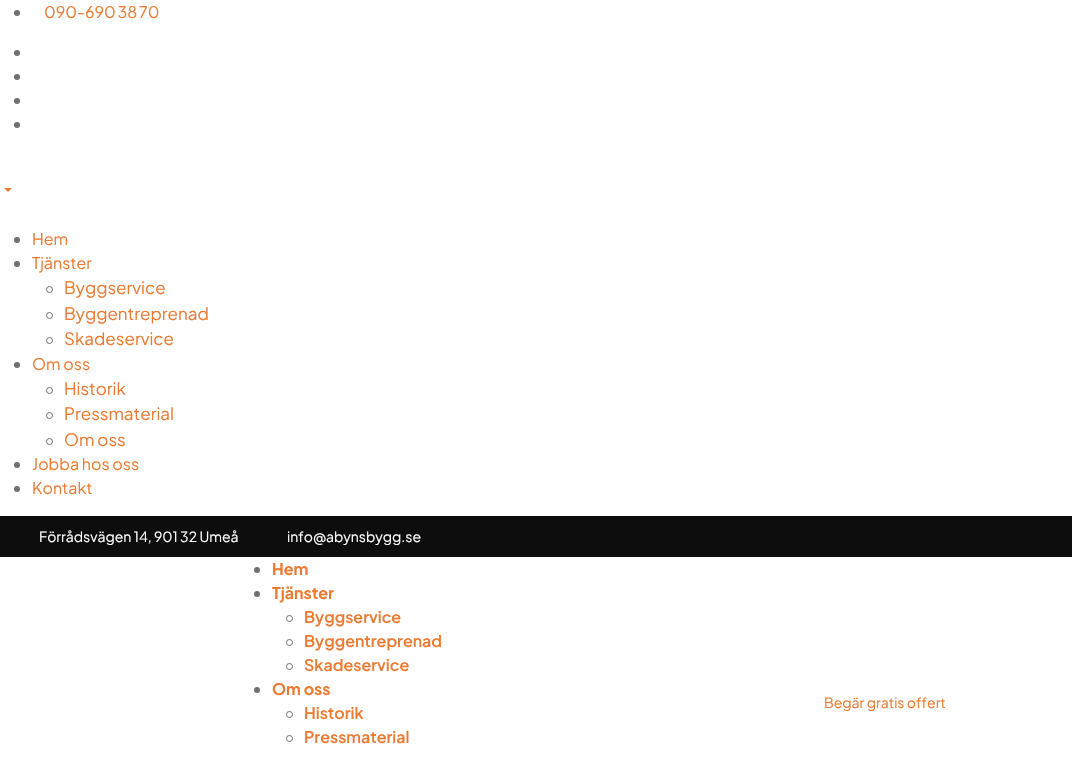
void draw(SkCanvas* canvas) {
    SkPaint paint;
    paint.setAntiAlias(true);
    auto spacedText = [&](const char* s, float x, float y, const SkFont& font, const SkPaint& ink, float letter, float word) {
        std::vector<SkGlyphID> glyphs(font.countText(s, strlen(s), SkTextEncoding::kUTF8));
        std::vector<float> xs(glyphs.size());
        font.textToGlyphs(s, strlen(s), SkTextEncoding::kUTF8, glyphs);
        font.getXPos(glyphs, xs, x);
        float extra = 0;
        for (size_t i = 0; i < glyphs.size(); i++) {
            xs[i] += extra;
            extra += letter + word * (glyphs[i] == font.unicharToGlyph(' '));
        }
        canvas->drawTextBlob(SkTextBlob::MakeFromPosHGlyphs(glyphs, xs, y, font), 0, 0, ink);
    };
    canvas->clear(0xFFFFFFFF);
    paint.setColor(0xFF6F6F6F);
    canvas->drawCircle(17, 13, 3, paint);
    SkFont font1(fontMgr->matchFamilyStyle("Plus Jakarta Sans", SkFontStyle::Normal()), 16);
    font1.setSubpixel(true);
    paint.setColor(0xFFEC7A30);
    spacedText("090-690 38 70", 44, 18, font1, paint, 0, -1);
    paint.setColor(0xFF6F6F6F);
    canvas->drawCircle(17, 53, 3, paint);
    canvas->drawCircle(17, 77, 3, paint);
    canvas->drawCircle(17, 101, 3, paint);
    canvas->drawCircle(17, 125, 3, paint);
    paint.setColor(0xFFEC7A30);
    canvas->drawPath(SkPathBuilder().moveTo(4, 188).lineTo(12, 188).lineTo(8, 192).close().detach(), paint);
    paint.setColor(0xFF6F6F6F);
    canvas->drawCircle(17, 240, 3, paint);
    paint.setColor(0xFFEC7A30);
    canvas->drawString("Hem", 32, 245, font1, paint);
    paint.setColor(0xFF6F6F6F);
    canvas->drawCircle(17, 264, 3, paint);
    paint.setColor(0xFFEC7A30);
    canvas->drawString("Tjänster", 32, 269, font1, paint);
    paint.setStyle(SkPaint::kStroke_Style);
    paint.setStrokeWidth(1);
    paint.setColor(0xFF6F6F6F);
    canvas->drawCircle(49.5f, 289.5f, 3, paint);
    SkFont font2(fontMgr->matchFamilyStyle("Plus Jakarta Sans", SkFontStyle::Normal()), 17);
    font2.setSubpixel(true);
    paint.setStyle(SkPaint::kFill_Style);
    paint.setColor(0xFFEC7A30);
    canvas->drawString("Byggservice", 64, 294, font2, paint);
    paint.setStyle(SkPaint::kStroke_Style);
    paint.setColor(0xFF6F6F6F);
    canvas->drawCircle(49.5f, 315.5f, 3, paint);
    paint.setStyle(SkPaint::kFill_Style);
    paint.setColor(0xFFEC7A30);
    canvas->drawString("Byggentreprenad", 64, 320, font2, paint);
    paint.setStyle(SkPaint::kStroke_Style);
    paint.setColor(0xFF6F6F6F);
    canvas->drawCircle(49.5f, 340.5f, 3, paint);
    paint.setStyle(SkPaint::kFill_Style);
    paint.setColor(0xFFEC7A30);
    canvas->drawString("Skadeservice", 64, 345, font2, paint);
    paint.setColor(0xFF6F6F6F);
    canvas->drawCircle(17, 365, 3, paint);
    paint.setColor(0xFFEC7A30);
    canvas->drawString("Om oss", 32, 370, font1, paint);
    paint.setStyle(SkPaint::kStroke_Style);
    paint.setColor(0xFF6F6F6F);
    canvas->drawCircle(49.5f, 390.5f, 3, paint);
    paint.setStyle(SkPaint::kFill_Style);
    paint.setColor(0xFFEC7A30);
    canvas->drawString("Historik", 64, 395, font2, paint);
    paint.setStyle(SkPaint::kStroke_Style);
    paint.setColor(0xFF6F6F6F);
    canvas->drawCircle(49.5f, 415.5f, 3, paint);
    paint.setStyle(SkPaint::kFill_Style);
    paint.setColor(0xFFEC7A30);
    canvas->drawString("Pressmaterial", 64, 420, font2, paint);
    paint.setStyle(SkPaint::kStroke_Style);
    paint.setColor(0xFF6F6F6F);
    canvas->drawCircle(49.5f, 441.5f, 3, paint);
    paint.setStyle(SkPaint::kFill_Style);
    paint.setColor(0xFFEC7A30);
    canvas->drawString("Om oss", 64, 446, font2, paint);
    paint.setColor(0xFF6F6F6F);
    canvas->drawCircle(17, 465, 3, paint);
    paint.setColor(0xFFEC7A30);
    canvas->drawString("Jobba hos oss", 32, 470, font1, paint);
    paint.setColor(0xFF6F6F6F);
    canvas->drawCircle(17, 489, 3, paint);
    paint.setColor(0xFFEC7A30);
    canvas->drawString("Kontakt", 32, 494, font1, paint);
    paint.setColor(0xFF0D0D0D);
    canvas->drawRect(SkRect::MakeXYWH(0, 516, 1072, 41), paint);
    SkFont font3(fontMgr->matchFamilyStyle("Plus Jakarta Sans", SkFontStyle::Normal()), 14);
    font3.setSubpixel(true);
    paint.setColor(0xFFFFFFFF);
    canvas->drawString("Förrådsvägen 14, 901 32 Umeå", 39, 542, font3, paint);
    canvas->drawString("info@abynsbygg.se", 287, 542, font3, paint);
    paint.setColor(0xFF6F6F6F);
    canvas->drawCircle(257, 570, 3, paint);
    SkFont font4(fontMgr->matchFamilyStyle("Plus Jakarta Sans", SkFontStyle::Bold()), 16);
    font4.setSubpixel(true);
    paint.setColor(0xFFEC7A30);
    canvas->drawString("Hem", 272, 575, font4, paint);
    paint.setColor(0xFF6F6F6F);
    canvas->drawCircle(257, 594, 3, paint);
    paint.setColor(0xFFEC7A30);
    canvas->drawString("Tjänster", 272, 599, font4, paint);
    paint.setStyle(SkPaint::kStroke_Style);
    paint.setColor(0xFF6F6F6F);
    canvas->drawCircle(289.5f, 618.5f, 3, paint);
    SkFont font5(fontMgr->matchFamilyStyle("Plus Jakarta Sans", SkFontStyle(600, SkFontStyle::kNormal_Width, SkFontStyle::kUpright_Slant)), 16);
    font5.setSubpixel(true);
    paint.setStyle(SkPaint::kFill_Style);
    paint.setColor(0xFFEC7A30);
    canvas->drawString("Byggservice", 304, 623, font5, paint);
    paint.setStyle(SkPaint::kStroke_Style);
    paint.setColor(0xFF6F6F6F);
    canvas->drawCircle(289.5f, 642.5f, 3, paint);
    paint.setStyle(SkPaint::kFill_Style);
    paint.setColor(0xFFEC7A30);
    canvas->drawString("Byggentreprenad", 304, 647, font5, paint);
    paint.setStyle(SkPaint::kStroke_Style);
    paint.setColor(0xFF6F6F6F);
    canvas->drawCircle(289.5f, 666.5f, 3, paint);
    paint.setStyle(SkPaint::kFill_Style);
    paint.setColor(0xFFEC7A30);
    canvas->drawString("Skadeservice", 304, 671, font5, paint);
    paint.setColor(0xFF6F6F6F);
    canvas->drawCircle(257, 690, 3, paint);
    paint.setColor(0xFFEC7A30);
    canvas->drawString("Om oss", 272, 695, font4, paint);
    paint.setStyle(SkPaint::kStroke_Style);
    paint.setColor(0xFF6F6F6F);
    canvas->drawCircle(289.5f, 714.5f, 3, paint);
    paint.setStyle(SkPaint::kFill_Style);
    paint.setColor(0xFFEC7A30);
    canvas->drawString("Historik", 304, 719, font5, paint);
    paint.setStyle(SkPaint::kStroke_Style);
    paint.setColor(0xFF6F6F6F);
    canvas->drawCircle(289.5f, 738.5f, 3, paint);
    paint.setStyle(SkPaint::kFill_Style);
    paint.setColor(0xFFEC7A30);
    canvas->drawString("Pressmaterial", 304, 743, font5, paint);
    canvas->drawString("Begär gratis offert", 824, 708, font3, paint);
}
